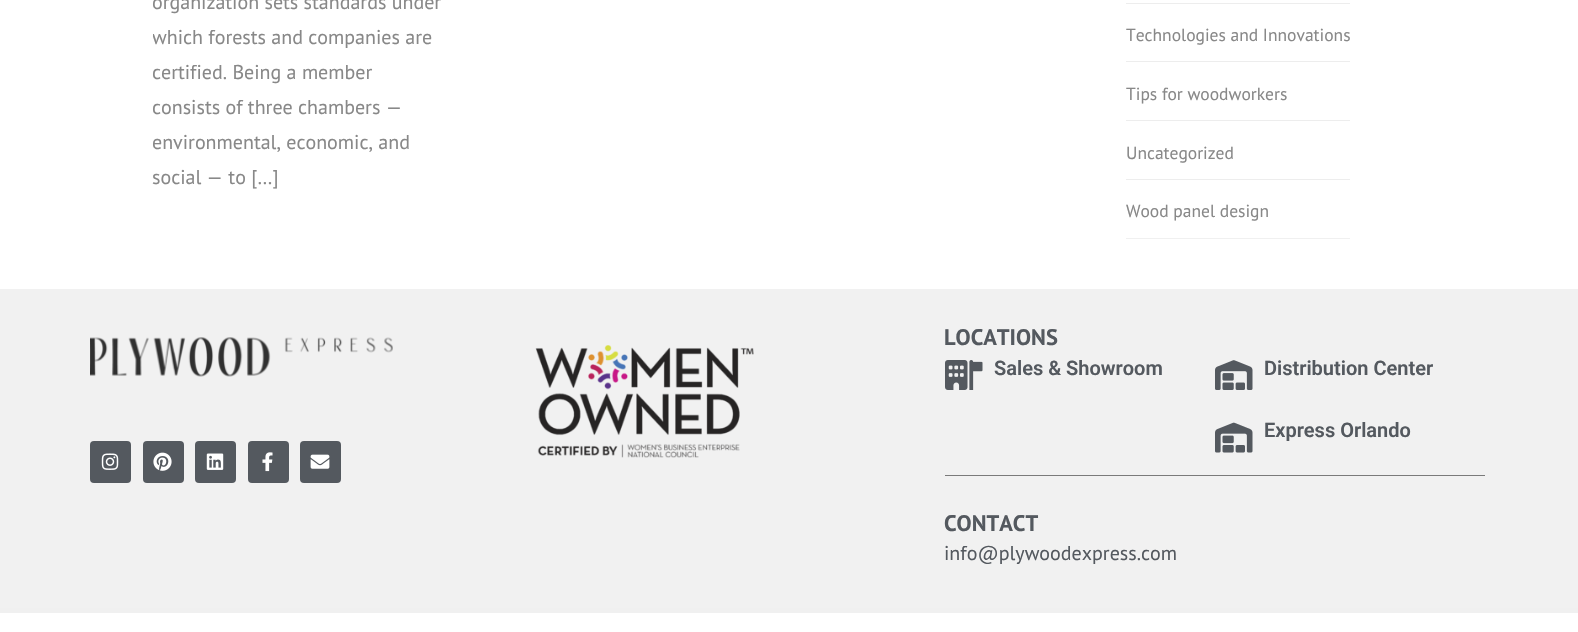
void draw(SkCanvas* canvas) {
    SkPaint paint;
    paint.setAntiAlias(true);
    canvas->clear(0xFFFFFFFF);
    SkFont font1(fontMgr->matchFamilyStyle("PT Sans", SkFontStyle::Normal()), 20);
    font1.setSubpixel(true);
    paint.setColor(0xFF888888);
    canvas->drawString("organization sets standards under", 152, 9, font1, paint);
    canvas->save();
    canvas->clipRect(SkRect::MakeXYWH(153, 0, 291, 214));
    canvas->drawString("which forests and companies are", 152, 44, font1, paint);
    canvas->restore();
    canvas->drawString("certified. Being a member", 152, 79, font1, paint);
    canvas->drawString("consists of three chambers —", 152, 114, font1, paint);
    canvas->drawString("environmental, economic, and", 152, 149, font1, paint);
    canvas->drawString("social — to […]", 152, 184, font1, paint);
    paint.setColor(0xFFF0F0F0);
    canvas->drawRect(SkRect::MakeXYWH(1126, 238, 224, 1), paint);
    paint.setColor(0xFFEDEDED);
    canvas->drawRect(SkRect::MakeXYWH(1126, 3, 224, 1), paint);
    canvas->drawRect(SkRect::MakeXYWH(1126, 61, 224, 1), paint);
    SkFont font2(fontMgr->matchFamilyStyle("PT Sans", SkFontStyle::Normal()), 17.5f);
    font2.setSubpixel(true);
    paint.setColor(0xFF888888);
    canvas->drawString("Technologies and Innovations", 1126, 41, font2, paint);
    paint.setColor(0xFFEDEDED);
    canvas->drawRect(SkRect::MakeXYWH(1126, 120, 224, 1), paint);
    paint.setColor(0xFF888888);
    canvas->drawString("Tips for woodworkers", 1126, 100, font2, paint);
    paint.setColor(0xFFEDEDED);
    canvas->drawRect(SkRect::MakeXYWH(1126, 179, 224, 1), paint);
    paint.setColor(0xFF888888);
    canvas->drawString("Uncategorized", 1126, 159, font2, paint);
    canvas->drawString("Wood panel design", 1126, 217, font2, paint);
    paint.setColor(0xFFF1F1F1);
    canvas->drawRect(SkRect::MakeXYWH(0, 289, 1578, 319), paint);
    canvas->drawImageRect(SkImages::DeferredFromEncodedData(SkData::MakeFromFileName("img1.png")), SkRect::MakeXYWH(90, 337, 303, 40), SkSamplingOptions());
    paint.setColor(0xFF54595F);
    canvas->drawRoundRect(SkRect::MakeXYWH(90, 441, 41, 42), 4, 4, paint);
    canvas->drawImageRect(SkImages::DeferredFromEncodedData(SkData::MakeFromFileName("img2.png")), SkRect::MakeXYWH(101, 453, 18, 17), SkSamplingOptions());
    canvas->drawRoundRect(SkRect::MakeXYWH(143, 441, 41, 42), 4, 4, paint);
    canvas->drawImageRect(SkImages::DeferredFromEncodedData(SkData::MakeFromFileName("img3.png")), SkRect::MakeXYWH(153, 452, 19, 19), SkSamplingOptions());
    canvas->drawRoundRect(SkRect::MakeXYWH(195, 441, 41, 42), 4, 4, paint);
    canvas->drawImageRect(SkImages::DeferredFromEncodedData(SkData::MakeFromFileName("img4.png")), SkRect::MakeXYWH(206, 453, 18, 17), SkSamplingOptions());
    canvas->drawRoundRect(SkRect::MakeXYWH(248, 441, 41, 42), 4, 4, paint);
    canvas->drawImageRect(SkImages::DeferredFromEncodedData(SkData::MakeFromFileName("img5.png")), SkRect::MakeXYWH(262, 452, 11, 20), SkSamplingOptions());
    canvas->drawRoundRect(SkRect::MakeXYWH(300, 441, 41, 42), 4, 4, paint);
    canvas->drawImageRect(SkImages::DeferredFromEncodedData(SkData::MakeFromFileName("img6.png")), SkRect::MakeXYWH(310, 454, 20, 15), SkSamplingOptions());
    canvas->drawImageRect(SkImages::DeferredFromEncodedData(SkData::MakeFromFileName("img7.png")), SkRect::MakeXYWH(535, 345, 219, 113), SkSamplingOptions());
    SkFont font3(fontMgr->matchFamilyStyle("PT Sans", SkFontStyle::Bold()), 22.5f);
    font3.setSubpixel(true);
    canvas->drawString("LOCATIONS", 944, 345, font3, paint);
    canvas->drawImageRect(SkImages::DeferredFromEncodedData(SkData::MakeFromFileName("img8.png")), SkRect::MakeXYWH(945, 360, 38, 30), SkSamplingOptions());
    SkFont font4(fontMgr->matchFamilyStyle("Roboto", SkFontStyle(600, SkFontStyle::kNormal_Width, SkFontStyle::kUpright_Slant)), 20);
    font4.setSubpixel(true);
    canvas->drawString("Sales & Showroom", 994, 375, font4, paint);
    canvas->drawImageRect(SkImages::DeferredFromEncodedData(SkData::MakeFromFileName("img9.png")), SkRect::MakeXYWH(1215, 360, 38, 30), SkSamplingOptions());
    canvas->drawString("Distribution Center", 1264, 375, font4, paint);
    canvas->drawImageRect(SkImages::DeferredFromEncodedData(SkData::MakeFromFileName("img10.png")), SkRect::MakeXYWH(1215, 422, 38, 31), SkSamplingOptions());
    canvas->drawString("Express Orlando", 1264, 437, font4, paint);
    paint.setColor(0xFF7A7A7A);
    canvas->drawRect(SkRect::MakeXYWH(945, 475, 540, 1), paint);
    paint.setColor(0xFF54595F);
    canvas->drawString("CONTACT", 944, 531, font3, paint);
    canvas->drawString("info@plywoodexpress.com", 944, 560, font1, paint);
    paint.setColor(0xFFF0F0F0);
    canvas->drawRect(SkRect::MakeXYWH(0, 608, 1578, 5), paint);
}
